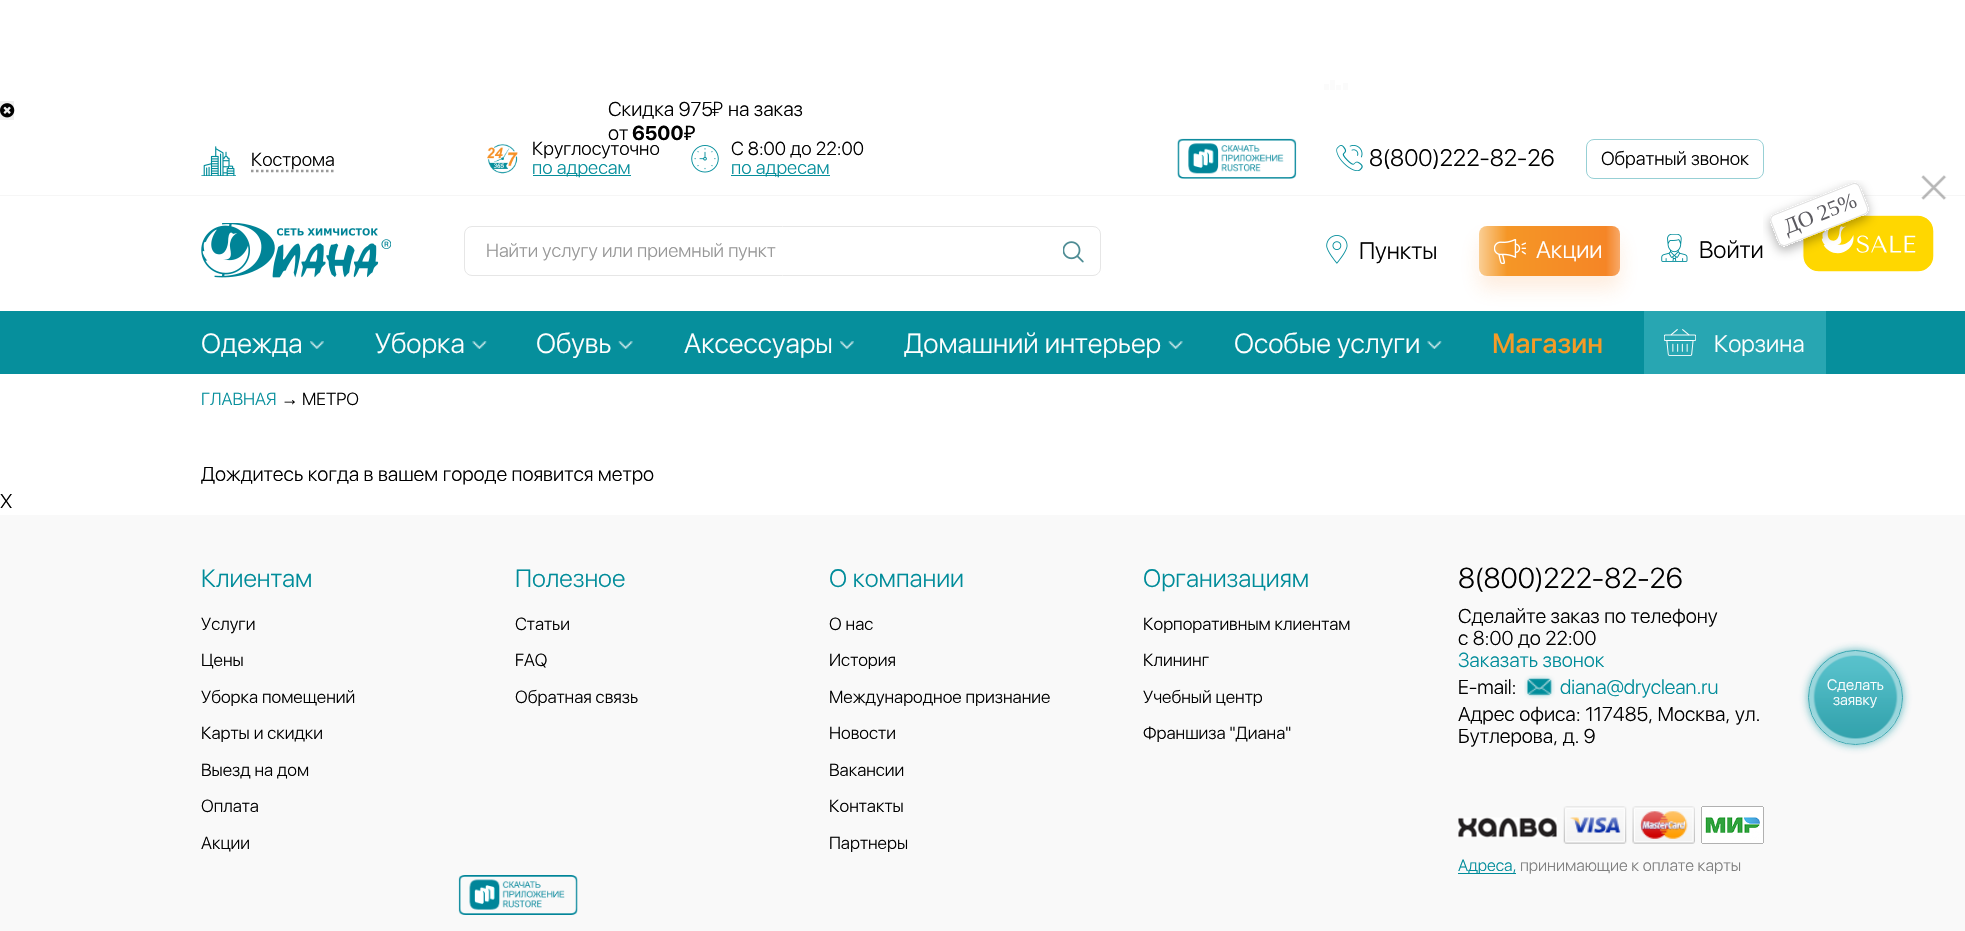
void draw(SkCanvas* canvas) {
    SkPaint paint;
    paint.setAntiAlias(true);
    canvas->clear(0xFFFFFFFF);
    paint.setColor(0xFFEFEFEF);
    canvas->drawRect(SkRect::MakeXYWH(0, 101, 14, 19), paint);
    canvas->drawImageRect(SkImages::DeferredFromEncodedData(SkData::MakeFromFileName("img1.png")), SkRect::MakeXYWH(0, 103, 15, 15), SkSamplingOptions());
    paint.setColor(0xFFFBFBFB);
    canvas->drawRect(SkRect::MakeXYWH(1324, 84, 5, 6), paint);
    canvas->drawRect(SkRect::MakeXYWH(1330, 80, 5, 10), paint);
    canvas->drawRect(SkRect::MakeXYWH(1336, 85, 5, 5), paint);
    canvas->drawRect(SkRect::MakeXYWH(1343, 83, 5, 7), paint);
    SkFont font1(fontMgr->matchFamilyStyle("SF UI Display", SkFontStyle(300, SkFontStyle::kNormal_Width, SkFontStyle::kUpright_Slant)), 20);
    font1.setSubpixel(true);
    paint.setColor(0xFF000000);
    canvas->drawString("Скидка 975", 608, 116, font1, paint);
    SkFont font2(fontMgr->matchFamilyStyle("Noto Sans", SkFontStyle(300, SkFontStyle::kNormal_Width, SkFontStyle::kUpright_Slant)), 20);
    font2.setSubpixel(true);
    canvas->drawString("₽", 712, 116, font2, paint);
    canvas->drawString("на заказ", 728, 116, font1, paint);
    canvas->drawString("от", 608, 140, font1, paint);
    SkFont font3(fontMgr->matchFamilyStyle("SF UI Display", SkFontStyle::Bold()), 20);
    font3.setSubpixel(true);
    canvas->drawString("6500", 632, 140, font3, paint);
    SkFont font4(fontMgr->matchFamilyStyle("Noto Sans", SkFontStyle::Normal()), 20);
    font4.setSubpixel(true);
    canvas->drawString("₽", 684, 140, font4, paint);
    paint.setColor(0xFFF6F6F6);
    canvas->drawRect(SkRect::MakeXYWH(0, 195, 1965, 1), paint);
    canvas->drawImageRect(SkImages::DeferredFromEncodedData(SkData::MakeFromFileName("img2.png")), SkRect::MakeXYWH(201, 146, 35, 30), SkSamplingOptions());
    paint.setStyle(SkPaint::kStroke_Style);
    paint.setStrokeWidth(2.5f);
    paint.setColor(0xFF999999);
    paint.setPathEffect(SkDashPathEffect::Make({{2.5f, 2.5f}}, 0));
    canvas->drawPath(SkPathBuilder().moveTo(251, 171).lineTo(335, 171).detach(), paint);
    paint.setPathEffect(nullptr);
    SkFont font5(fontMgr->matchFamilyStyle("SF UI Display", SkFontStyle(300, SkFontStyle::kNormal_Width, SkFontStyle::kUpright_Slant)), 18.75f);
    font5.setSubpixel(true);
    paint.setStyle(SkPaint::kFill_Style);
    paint.setColor(0xFF000000);
    canvas->drawString("Кострома", 251, 166, font5, paint);
    canvas->drawImageRect(SkImages::DeferredFromEncodedData(SkData::MakeFromFileName("img3.png")), SkRect::MakeXYWH(487, 144, 31, 30), SkSamplingOptions());
    canvas->drawString("Круглосуточно", 532, 155, font5, paint);
    paint.setColor(0xFF068F9C);
    canvas->drawRect(SkRect::MakeXYWH(533, 175, 98, 1), paint);
    canvas->drawString("по адресам", 532, 174, font5, paint);
    canvas->drawImageRect(SkImages::DeferredFromEncodedData(SkData::MakeFromFileName("img4.png")), SkRect::MakeXYWH(691, 145, 28, 28), SkSamplingOptions());
    paint.setColor(0xFF000000);
    canvas->drawString("С 8:00 до 22:00", 731, 155, font5, paint);
    paint.setColor(0xFF068F9C);
    canvas->drawRect(SkRect::MakeXYWH(731, 175, 99, 1), paint);
    canvas->drawString("по адресам", 731, 174, font5, paint);
    canvas->drawImageRect(SkImages::DeferredFromEncodedData(SkData::MakeFromFileName("img5.png")), SkRect::MakeXYWH(1177, 138, 120, 41), SkSamplingOptions());
    canvas->drawImageRect(SkImages::DeferredFromEncodedData(SkData::MakeFromFileName("img6.png")), SkRect::MakeXYWH(1336, 145, 27, 26), SkSamplingOptions());
    SkFont font6(fontMgr->matchFamilyStyle("SF UI Display", SkFontStyle(300, SkFontStyle::kNormal_Width, SkFontStyle::kUpright_Slant)), 23.75f);
    font6.setSubpixel(true);
    paint.setColor(0xFF000000);
    canvas->drawString("8(800)222-82-26", 1369, 166, font6, paint);
    paint.setStyle(SkPaint::kStroke_Style);
    paint.setStrokeWidth(1);
    paint.setColor(0xFF97D0D5);
    canvas->drawRoundRect(SkRect::MakeXYWH(1586.5f, 139.5f, 177, 39), 7.5f, 7.5f, paint);
    paint.setStyle(SkPaint::kFill_Style);
    paint.setColor(0xFF000000);
    canvas->drawString("Обратный звонок", 1601, 165, font5, paint);
    canvas->drawImageRect(SkImages::DeferredFromEncodedData(SkData::MakeFromFileName("img7.png")), SkRect::MakeXYWH(201, 223, 190, 55), SkSamplingOptions());
    paint.setStyle(SkPaint::kStroke_Style);
    paint.setColor(0xFFE6E6E6);
    canvas->drawRoundRect(SkRect::MakeXYWH(464.5f, 226.5f, 636, 49), 7.5f, 7.5f, paint);
    paint.setStyle(SkPaint::kFill_Style);
    paint.setColor(0xFF979797);
    canvas->drawString("Найти услугу или приемный пункт", 486, 257, font5, paint);
    canvas->drawImageRect(SkImages::DeferredFromEncodedData(SkData::MakeFromFileName("img8.png")), SkRect::MakeXYWH(1063, 241, 21, 22), SkSamplingOptions());
    canvas->drawImageRect(SkImages::DeferredFromEncodedData(SkData::MakeFromFileName("img9.png")), SkRect::MakeXYWH(1326, 235, 22, 29), SkSamplingOptions());
    paint.setColor(0xFF000000);
    canvas->drawString("Пункты", 1359, 259, font6, paint);
    paint.setColor(0xFF068F9C);
    canvas->drawRect(SkRect::MakeXYWH(0, 311, 1965, 63), paint);
    paint.setColor(0x26F58326);
    paint.setMaskFilter(SkMaskFilter::MakeBlur(kNormal_SkBlurStyle, 9.5f));
    canvas->drawRoundRect(SkRect::MakeXYWH(1479, 239, 141, 50), 8, 8, paint);
    paint.setMaskFilter(nullptr);
    {
        const SkColor colors[] = {0xFFF59B26, 0xFFF58326};
        const float stops[] = {0, 1};
        const SkPoint ends[] = {{1479, 251}, {1620, 251}};
        paint.setShader(SkGradientShader::MakeLinear(ends, colors, stops, 2, SkTileMode::kClamp));
        paint.setAlpha(255);
    }
    canvas->drawRoundRect(SkRect::MakeXYWH(1479, 226, 141, 50), 8, 8, paint);
    canvas->drawImageRect(SkImages::DeferredFromEncodedData(SkData::MakeFromFileName("img10.png")), SkRect::MakeXYWH(1494, 239, 32, 25), SkSamplingOptions());
    {
        const SkColor colors[] = {0x80FFFFFF, 0x00FFFFFF, 0x00FFFFFF, 0x4DFFFFFF};
        const float stops[] = {0, 0.2f, 0.9f, 1};
        const SkPoint ends[] = {{1479, 251}, {1620, 251}};
        paint.setShader(SkGradientShader::MakeLinear(ends, colors, stops, 4, SkTileMode::kClamp));
        paint.setAlpha(255);
    }
    canvas->drawRect(SkRect::MakeXYWH(1479, 226, 141, 50), paint);
    paint.setShader(nullptr);
    paint.setColor(0xFFFFFFFF);
    canvas->drawString("Акции", 1536, 258, font6, paint);
    canvas->drawImageRect(SkImages::DeferredFromEncodedData(SkData::MakeFromFileName("img11.png")), SkRect::MakeXYWH(1661, 234, 27, 28), SkSamplingOptions());
    paint.setColor(0xFF000000);
    canvas->drawString("Войти", 1699, 258, font6, paint);
    SkFont font7(fontMgr->matchFamilyStyle("SF UI Display", SkFontStyle(300, SkFontStyle::kNormal_Width, SkFontStyle::kUpright_Slant)), 27.5f);
    font7.setSubpixel(true);
    paint.setColor(0xFFFFFFFF);
    canvas->drawString("Одежда", 201, 353, font7, paint);
    canvas->drawImageRect(SkImages::DeferredFromEncodedData(SkData::MakeFromFileName("img12.png")), SkRect::MakeXYWH(310, 341, 14, 8), SkSamplingOptions());
    canvas->drawString("Уборка", 375, 353, font7, paint);
    canvas->drawImageRect(SkImages::DeferredFromEncodedData(SkData::MakeFromFileName("img13.png")), SkRect::MakeXYWH(472, 341, 15, 8), SkSamplingOptions());
    canvas->drawString("Обувь", 536, 353, font7, paint);
    canvas->drawImageRect(SkImages::DeferredFromEncodedData(SkData::MakeFromFileName("img14.png")), SkRect::MakeXYWH(618, 341, 15, 8), SkSamplingOptions());
    canvas->drawString("Аксессуары", 684, 353, font7, paint);
    canvas->drawImageRect(SkImages::DeferredFromEncodedData(SkData::MakeFromFileName("img15.png")), SkRect::MakeXYWH(840, 341, 14, 8), SkSamplingOptions());
    canvas->drawString("Домашний интерьер", 904, 353, font7, paint);
    canvas->drawImageRect(SkImages::DeferredFromEncodedData(SkData::MakeFromFileName("img16.png")), SkRect::MakeXYWH(1168, 341, 15, 8), SkSamplingOptions());
    canvas->drawString("Особые услуги", 1234, 353, font7, paint);
    canvas->drawImageRect(SkImages::DeferredFromEncodedData(SkData::MakeFromFileName("img13.png")), SkRect::MakeXYWH(1427, 341, 15, 8), SkSamplingOptions());
    SkFont font8(fontMgr->matchFamilyStyle("SF UI Display", SkFontStyle(500, SkFontStyle::kNormal_Width, SkFontStyle::kUpright_Slant)), 27.5f);
    font8.setSubpixel(true);
    paint.setColor(0xFFF59B26);
    canvas->drawString("Магазин", 1492, 353, font8, paint);
    paint.setColor(0xFF28A6B2);
    canvas->drawRect(SkRect::MakeXYWH(1644, 311, 182, 63), paint);
    canvas->drawImageRect(SkImages::DeferredFromEncodedData(SkData::MakeFromFileName("img17.png")), SkRect::MakeXYWH(1664, 329, 32, 27), SkSamplingOptions());
    paint.setColor(0xFFFFFFFF);
    canvas->drawString("Корзина", 1714, 352, font6, paint);
    SkFont font9(fontMgr->matchFamilyStyle("SF UI Display", SkFontStyle(300, SkFontStyle::kNormal_Width, SkFontStyle::kUpright_Slant)), 17.5f);
    font9.setSubpixel(true);
    paint.setColor(0xFF068F9C);
    canvas->drawString("ГЛАВНАЯ", 201, 405, font9, paint);
    SkFont font10(fontMgr->matchFamilyStyle("Liberation Serif", SkFontStyle::Normal()), 17.5f);
    font10.setSubpixel(true);
    paint.setColor(0xFF000000);
    canvas->drawString("→", 281, 405, font10, paint);
    canvas->drawString("МЕТРО", 302, 405, font9, paint);
    canvas->drawString("Дождитесь когда в вашем городе появится метро", 201, 481, font1, paint);
    paint.setColor(0xFFF9F9F9);
    canvas->drawRect(SkRect::MakeXYWH(0, 515, 1965, 416), paint);
    canvas->save();
    canvas->clipPath(SkPathBuilder(SkPathFillType::kEvenOdd).moveTo(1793, 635).lineTo(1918, 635).lineTo(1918, 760).lineTo(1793, 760).close().moveTo(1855.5f, 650).cubicTo(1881.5f, 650, 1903, 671.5f, 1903, 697.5f).cubicTo(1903, 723.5f, 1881.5f, 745, 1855.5f, 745).cubicTo(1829.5f, 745, 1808, 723.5f, 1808, 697.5f).cubicTo(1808, 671.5f, 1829.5f, 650, 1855.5f, 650).close().detach(), true);
    paint.setColor(0xC434A4AE);
    paint.setMaskFilter(SkMaskFilter::MakeBlur(kNormal_SkBlurStyle, 4.5f));
    canvas->drawRoundRect(SkRect::MakeXYWH(1808, 650, 95, 95), 47.5f, 47.5f, paint);
    paint.setMaskFilter(nullptr);
    canvas->restore();
    canvas->drawImageRect(SkImages::DeferredFromEncodedData(SkData::MakeFromFileName("img18.png")), SkRect::MakeXYWH(1808, 650, 95, 95), SkSamplingOptions());
    SkFont font11(fontMgr->matchFamilyStyle("SF UI Display", SkFontStyle(300, SkFontStyle::kNormal_Width, SkFontStyle::kUpright_Slant)), 15);
    font11.setSubpixel(true);
    paint.setColor(0xFFFFFFFF);
    canvas->drawString("Сделать", 1827, 690, font11, paint);
    canvas->drawString("заявку", 1833, 705, font11, paint);
    paint.setStyle(SkPaint::kStroke_Style);
    paint.setColor(0xFF36A5AF);
    canvas->drawCircle(1855.5f, 697.5f, 47, paint);
    canvas->drawImageRect(SkImages::DeferredFromEncodedData(SkData::MakeFromFileName("img20.png")), SkRect::MakeXYWH(1763, 180, 171, 92), SkSamplingOptions());
    canvas->drawImageRect(SkImages::DeferredFromEncodedData(SkData::MakeFromFileName("img19.png")), SkRect::MakeXYWH(1921, 175, 26, 25), SkSamplingOptions());
    paint.setStyle(SkPaint::kFill_Style);
    paint.setColor(0xFF000000);
    canvas->drawString("X", 0, 508, font1, paint);
    SkFont font12(fontMgr->matchFamilyStyle("SF UI Display", SkFontStyle(300, SkFontStyle::kNormal_Width, SkFontStyle::kUpright_Slant)), 25);
    font12.setSubpixel(true);
    paint.setColor(0xFF008C9A);
    canvas->drawString("Клиентам", 201, 587, font12, paint);
    paint.setColor(0xFF000000);
    canvas->drawString("Услуги", 201, 630, font9, paint);
    canvas->drawString("Цены", 201, 666, font9, paint);
    canvas->drawString("Уборка помещений", 201, 703, font9, paint);
    canvas->drawString("Карты и скидки", 201, 739, font9, paint);
    canvas->drawString("Выезд на дом", 201, 776, font9, paint);
    canvas->drawString("Оплата", 201, 812, font9, paint);
    canvas->drawString("Акции", 201, 849, font9, paint);
    paint.setColor(0xFF008C9A);
    canvas->drawString("Полезное", 515, 587, font12, paint);
    paint.setColor(0xFF000000);
    canvas->drawString("Статьи", 515, 630, font9, paint);
    canvas->drawString("FAQ", 515, 666, font9, paint);
    canvas->drawString("Обратная связь", 515, 703, font9, paint);
    paint.setColor(0xFF008C9A);
    canvas->drawString("О компании", 829, 587, font12, paint);
    paint.setColor(0xFF000000);
    canvas->drawString("О нас", 829, 630, font9, paint);
    canvas->drawString("История", 829, 666, font9, paint);
    canvas->drawString("Международное признание", 829, 703, font9, paint);
    canvas->drawString("Новости", 829, 739, font9, paint);
    canvas->drawString("Вакансии", 829, 776, font9, paint);
    canvas->drawString("Контакты", 829, 812, font9, paint);
    canvas->drawString("Партнеры", 829, 849, font9, paint);
    paint.setColor(0xFF008C9A);
    canvas->drawString("Организациям", 1143, 587, font12, paint);
    paint.setColor(0xFF000000);
    canvas->drawString("Корпоративным клиентам", 1143, 630, font9, paint);
    canvas->drawString("Клининг", 1143, 666, font9, paint);
    canvas->drawString("Учебный центр", 1143, 703, font9, paint);
    canvas->drawString("Франшиза \"Диана\"", 1143, 739, font9, paint);
    SkFont font13(fontMgr->matchFamilyStyle("SF UI Display", SkFontStyle(300, SkFontStyle::kNormal_Width, SkFontStyle::kUpright_Slant)), 28.75f);
    font13.setSubpixel(true);
    canvas->drawString("8(800)222-82-26", 1458, 588, font13, paint);
    canvas->drawString("Cделайте заказ по телефону", 1458, 623, font1, paint);
    canvas->drawString("с 8:00 до 22:00", 1458, 645, font1, paint);
    paint.setColor(0xFF008C9A);
    canvas->drawString("Заказать звонок", 1458, 667, font1, paint);
    paint.setColor(0xFF000000);
    canvas->drawString("E-mail:", 1458, 694, font1, paint);
    canvas->drawImageRect(SkImages::DeferredFromEncodedData(SkData::MakeFromFileName("img21.png")), SkRect::MakeXYWH(1524, 675, 31, 24), SkSamplingOptions());
    paint.setColor(0xFF008C9A);
    canvas->drawString("diana@dryclean.ru", 1560, 694, font1, paint);
    paint.setColor(0xFF000000);
    canvas->drawString("Адрес офиса: 117485, Москва, ул.", 1458, 721, font1, paint);
    canvas->drawString("Бутлерова, д. 9", 1458, 743, font1, paint);
    canvas->drawImageRect(SkImages::DeferredFromEncodedData(SkData::MakeFromFileName("img22.png")), SkRect::MakeXYWH(1458, 817, 99, 21), SkSamplingOptions());
    canvas->drawImageRect(SkImages::DeferredFromEncodedData(SkData::MakeFromFileName("img23.png")), SkRect::MakeXYWH(1563, 806, 64, 38), SkSamplingOptions());
    canvas->drawImageRect(SkImages::DeferredFromEncodedData(SkData::MakeFromFileName("img24.png")), SkRect::MakeXYWH(1632, 806, 63, 38), SkSamplingOptions());
    canvas->drawImageRect(SkImages::DeferredFromEncodedData(SkData::MakeFromFileName("img25.png")), SkRect::MakeXYWH(1701, 806, 63, 38), SkSamplingOptions());
    paint.setColor(0xFF008C9A);
    canvas->drawRect(SkRect::MakeXYWH(1458, 873, 58, 1), paint);
    SkFont font14(fontMgr->matchFamilyStyle("SF UI Display", SkFontStyle(300, SkFontStyle::kNormal_Width, SkFontStyle::kUpright_Slant)), 16.25f);
    font14.setSubpixel(true);
    canvas->drawString("Адреса,", 1458, 871, font14, paint);
    paint.setColor(0xFF7F7F7F);
    canvas->drawString("принимающие к оплате карты", 1520, 871, font14, paint);
    canvas->drawImageRect(SkImages::DeferredFromEncodedData(SkData::MakeFromFileName("img26.png")), SkRect::MakeXYWH(458, 875, 120, 40), SkSamplingOptions());
}
